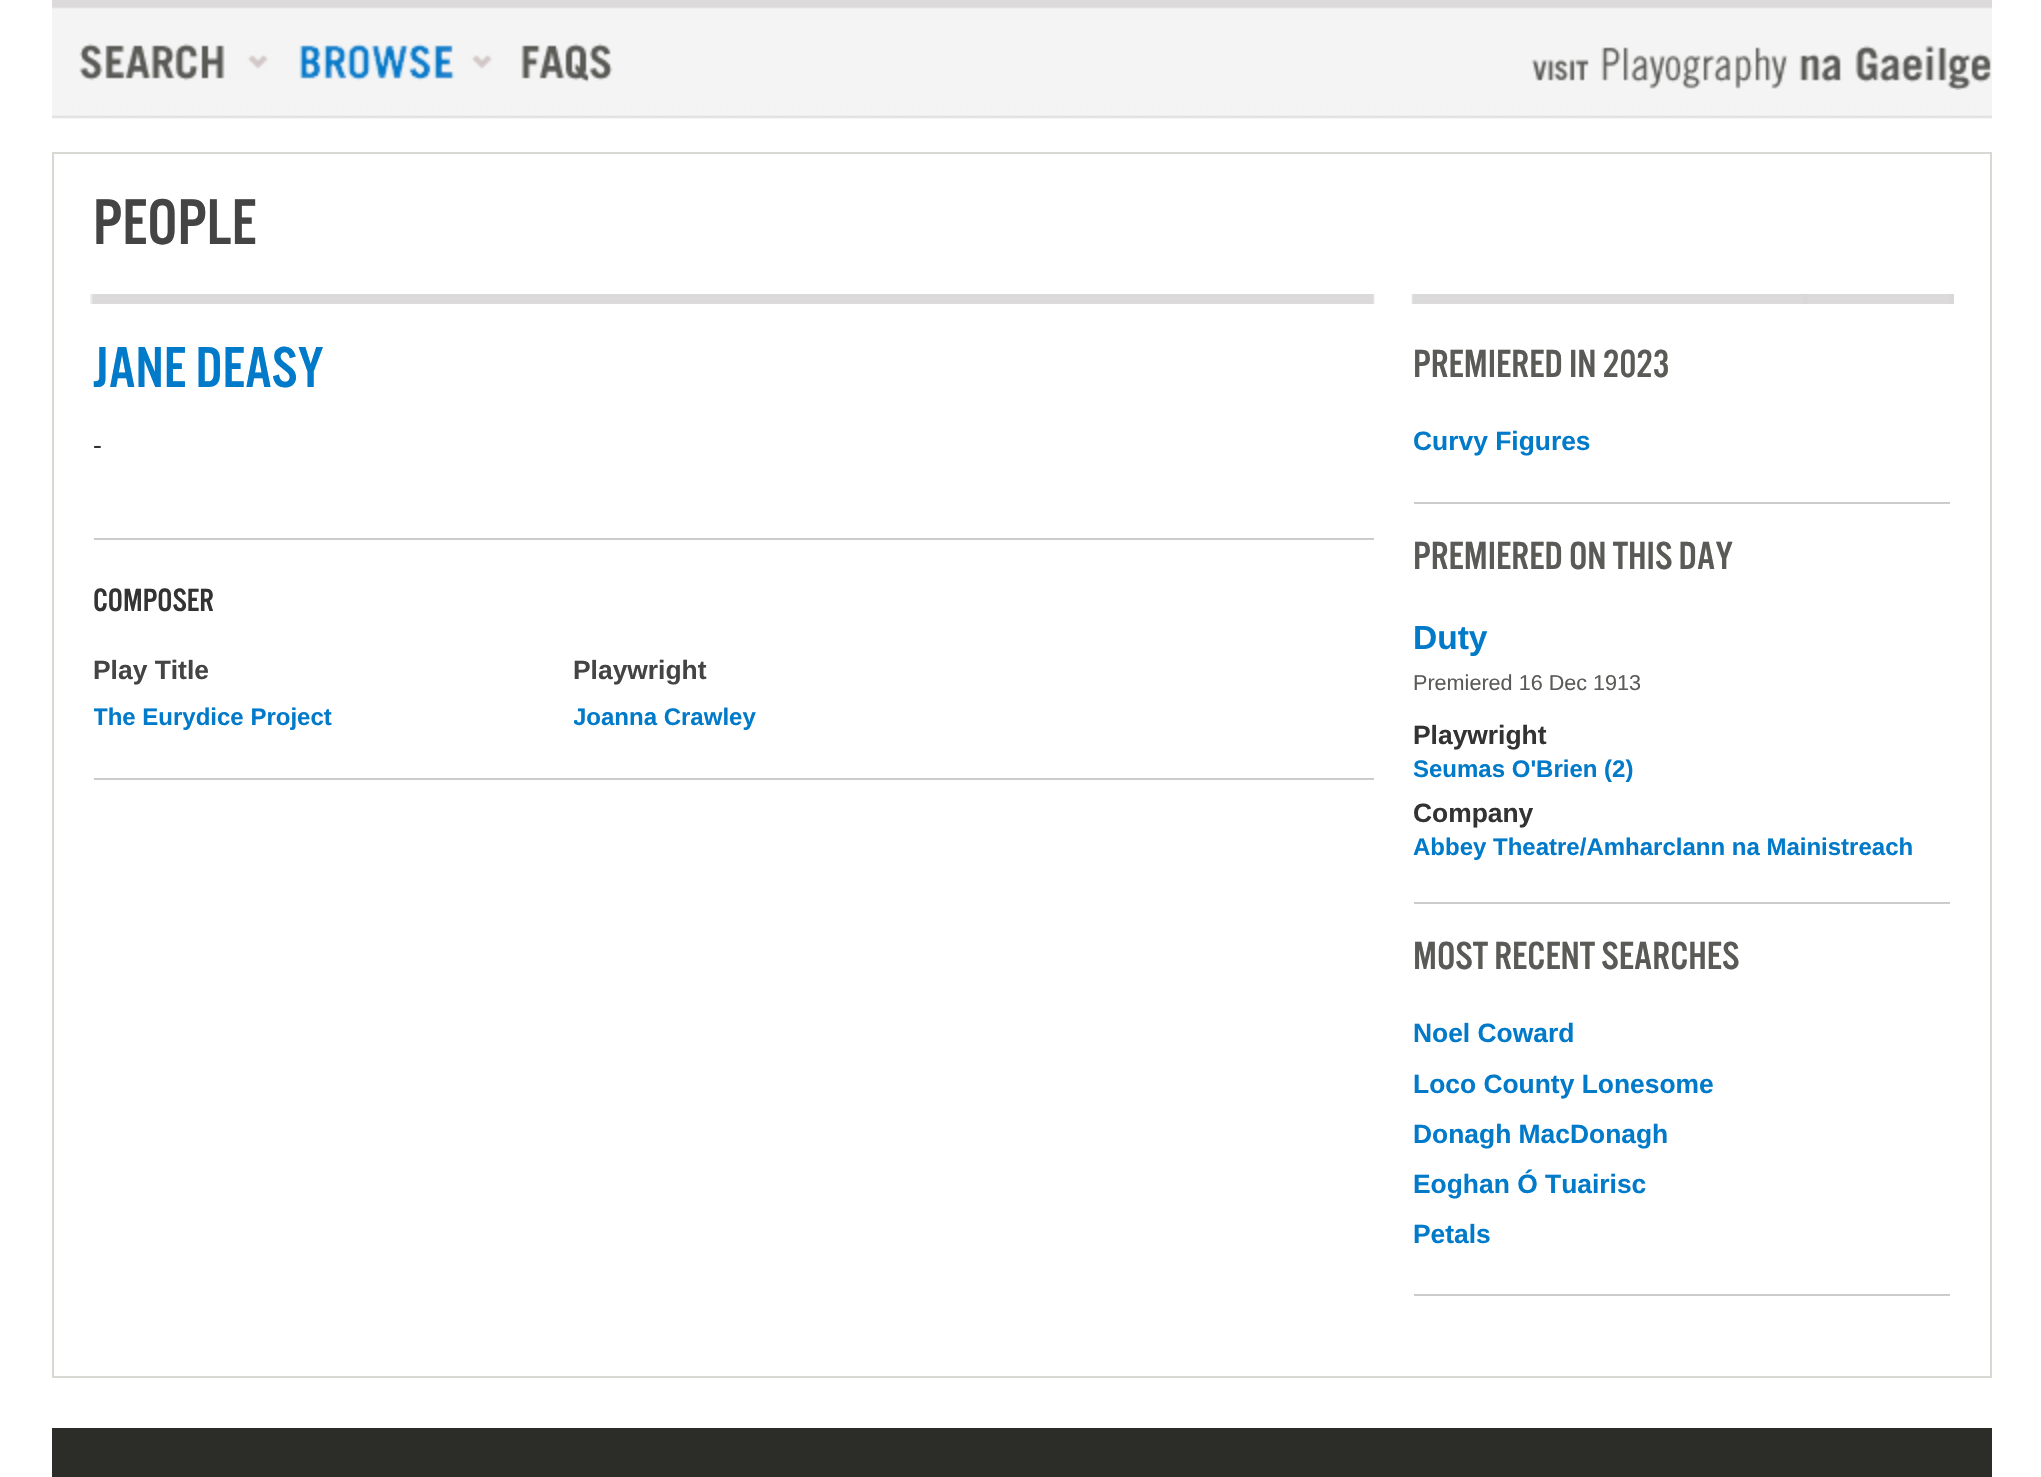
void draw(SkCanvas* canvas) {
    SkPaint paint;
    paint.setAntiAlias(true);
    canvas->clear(0xFFFFFFFF);
    canvas->drawImageRect(SkImages::DeferredFromEncodedData(SkData::MakeFromFileName("img1.png")), SkRect::MakeXYWH(52, 0, 1940, 119), SkSamplingOptions());
    canvas->drawImageRect(SkImages::DeferredFromEncodedData(SkData::MakeFromFileName("img2.png")), SkRect::MakeXYWH(79, 43, 190, 38), SkSamplingOptions());
    canvas->drawImageRect(SkImages::DeferredFromEncodedData(SkData::MakeFromFileName("img3.png")), SkRect::MakeXYWH(299, 43, 193, 38), SkSamplingOptions());
    canvas->drawImageRect(SkImages::DeferredFromEncodedData(SkData::MakeFromFileName("img4.png")), SkRect::MakeXYWH(521, 43, 92, 40), SkSamplingOptions());
    canvas->drawImageRect(SkImages::DeferredFromEncodedData(SkData::MakeFromFileName("img5.png")), SkRect::MakeXYWH(1531, 45, 460, 45), SkSamplingOptions());
    canvas->drawImageRect(SkImages::DeferredFromEncodedData(SkData::MakeFromFileName("img6.png")), SkRect::MakeXYWH(90, 294, 1864, 10), SkSamplingOptions());
    paint.setStyle(SkPaint::kStroke_Style);
    paint.setStrokeWidth(2);
    paint.setColor(0xFFD9D9D3);
    canvas->drawRect(SkRect::MakeXYWH(53, 153, 1938, 1224), paint);
    SkFont font1(fontMgr->matchFamilyStyle("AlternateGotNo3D", SkFontStyle::Normal()), 67);
    font1.setSubpixel(true);
    paint.setStyle(SkPaint::kFill_Style);
    paint.setColor(0xFF444444);
    canvas->drawString("PEOPLE", 93, 244, font1, paint);
    paint.setColor(0xFFCCCCCC);
    canvas->drawRect(SkRect::MakeXYWH(94, 538, 1280, 2), paint);
    SkFont font2(fontMgr->matchFamilyStyle("AlternateGotNo3D", SkFontStyle::Normal()), 60);
    font2.setSubpixel(true);
    paint.setColor(0xFF017AC9);
    canvas->drawString("JANE DEASY", 93, 387, font2, paint);
    SkFont font3(fontMgr->matchFamilyStyle("Liberation Sans", SkFontStyle::Normal()), 26.4f);
    font3.setSubpixel(true);
    paint.setColor(0xFF333333);
    canvas->drawString("-", 93, 454, font3, paint);
    paint.setColor(0xFFCCCCCC);
    canvas->drawRect(SkRect::MakeXYWH(94, 778, 1280, 2), paint);
    SkFont font4(fontMgr->matchFamilyStyle("AlternateGotNo3D", SkFontStyle::Normal()), 33.5f);
    font4.setSubpixel(true);
    paint.setColor(0xFF333333);
    canvas->drawString("COMPOSER", 93, 611, font4, paint);
    SkFont font5(fontMgr->matchFamilyStyle("Liberation Sans", SkFontStyle::Bold()), 26.4f);
    font5.setSubpixel(true);
    paint.setColor(0xFF444444);
    canvas->drawString("Play Title", 93, 679, font5, paint);
    canvas->drawString("Playwright", 573, 679, font5, paint);
    canvas->save();
    canvas->clipRect(SkRect::MakeXYWH(94, 694, 480, 44));
    SkFont font6(fontMgr->matchFamilyStyle("Liberation Sans", SkFontStyle::Bold()), 24);
    font6.setSubpixel(true);
    paint.setColor(0xFF017AC9);
    canvas->drawString("The Eurydice Project", 93, 725, font6, paint);
    canvas->restore();
    canvas->save();
    canvas->clipRect(SkRect::MakeXYWH(574, 694, 800, 44));
    canvas->drawString("Joanna Crawley", 573, 725, font6, paint);
    canvas->restore();
    paint.setColor(0xFFCCCCCC);
    canvas->drawRect(SkRect::MakeXYWH(1414, 502, 536, 2), paint);
    SkFont font7(fontMgr->matchFamilyStyle("AlternateGotNo3D", SkFontStyle::Normal()), 40.75f);
    font7.setSubpixel(true);
    paint.setColor(0xFF5A5B57);
    canvas->drawString("PREMIERED IN 2023", 1413, 377, font7, paint);
    paint.setColor(0xFF017AC9);
    canvas->drawString("Curvy Figures", 1413, 450, font5, paint);
    paint.setColor(0xFFCCCCCC);
    canvas->drawRect(SkRect::MakeXYWH(1414, 902, 536, 2), paint);
    paint.setColor(0xFF5A5B57);
    canvas->drawString("PREMIERED ON THIS DAY", 1413, 569, font7, paint);
    SkFont font8(fontMgr->matchFamilyStyle("Liberation Sans", SkFontStyle::Bold()), 33.5f);
    font8.setSubpixel(true);
    paint.setColor(0xFF017AC9);
    canvas->drawString("Duty", 1413, 649, font8, paint);
    SkFont font9(fontMgr->matchFamilyStyle("Liberation Sans", SkFontStyle::Normal()), 21.6f);
    font9.setSubpixel(true);
    paint.setColor(0xFF5A5B57);
    canvas->drawString("Premiered 16 Dec 1913", 1413, 690, font9, paint);
    paint.setColor(0xFF333333);
    canvas->drawString("Playwright", 1413, 744, font5, paint);
    paint.setColor(0xFF017AC9);
    canvas->drawString("Seumas O'Brien (2)", 1413, 777, font6, paint);
    paint.setColor(0xFF333333);
    canvas->drawString("Company", 1413, 822, font5, paint);
    paint.setColor(0xFF017AC9);
    canvas->drawString("Abbey Theatre/Amharclann na Mainistreach", 1413, 855, font6, paint);
    paint.setColor(0xFFCCCCCC);
    canvas->drawRect(SkRect::MakeXYWH(1414, 1294, 536, 2), paint);
    paint.setColor(0xFF5A5B57);
    canvas->drawString("MOST RECENT SEARCHES", 1413, 969, font7, paint);
    paint.setColor(0xFF017AC9);
    canvas->drawString("Noel Coward", 1413, 1042, font5, paint);
    canvas->drawString("Loco County Lonesome", 1413, 1093, font5, paint);
    canvas->drawString("Donagh MacDonagh", 1413, 1143, font5, paint);
    canvas->drawString("Eoghan Ó Tuairisc", 1413, 1193, font5, paint);
    canvas->drawString("Petals", 1413, 1243, font5, paint);
    paint.setColor(0xFF2C2D28);
    canvas->drawRect(SkRect::MakeXYWH(52, 1428, 1940, 49), paint);
}
